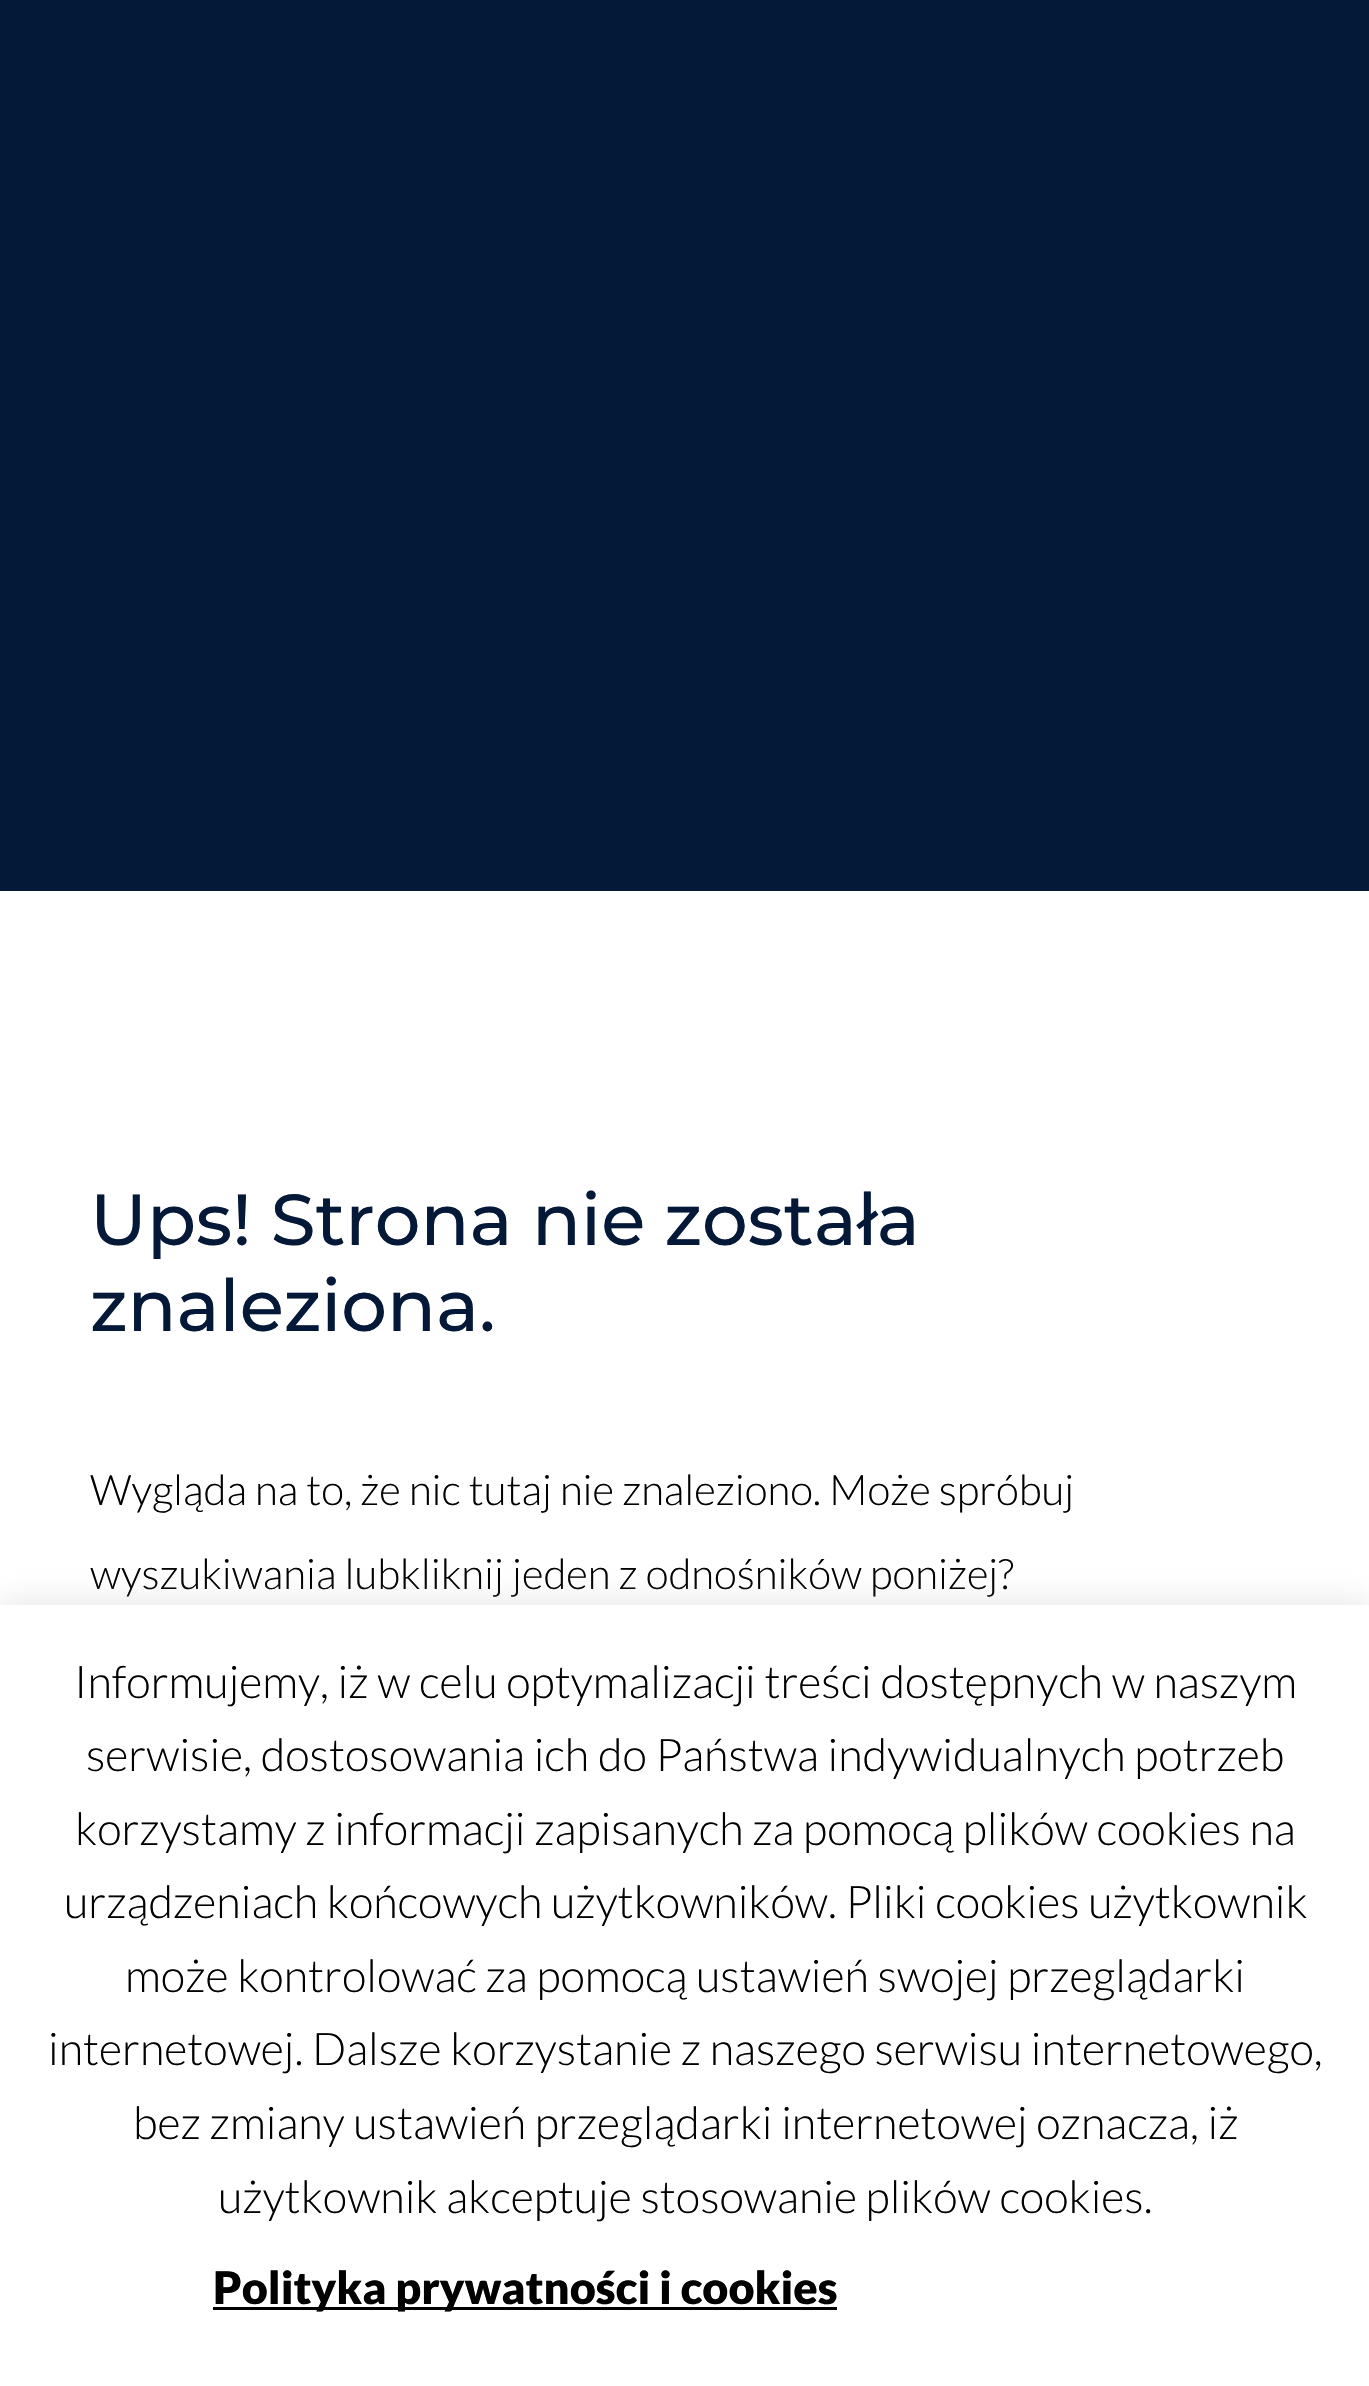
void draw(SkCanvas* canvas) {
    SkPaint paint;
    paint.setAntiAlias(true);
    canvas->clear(0xFFFFFFFF);
    paint.setColor(0xFF041838);
    canvas->drawRect(SkRect::MakeXYWH(0, 0, 1369, 891), paint);
    SkFont font1(fontMgr->matchFamilyStyle("Montserrat", SkFontStyle(500, SkFontStyle::kNormal_Width, SkFontStyle::kUpright_Slant)), 72);
    font1.setSubpixel(true);
    canvas->drawString("Ups! Strona nie została", 90, 1245, font1, paint);
    canvas->drawString("znaleziona.", 90, 1331, font1, paint);
    SkFont font2(fontMgr->matchFamilyStyle("Lato", SkFontStyle(300, SkFontStyle::kNormal_Width, SkFontStyle::kUpright_Slant)), 42);
    font2.setSubpixel(true);
    paint.setColor(0xFF000000);
    canvas->drawString("Wygląda na to, że nic tutaj nie znaleziono. Może spróbuj", 90, 1505, font2, paint);
    canvas->drawString("wyszukiwania lubkliknij jeden z odnośników poniżej?", 90, 1589, font2, paint);
    paint.setColor(0x4DACABAB);
    paint.setMaskFilter(SkMaskFilter::MakeBlur(kNormal_SkBlurStyle, 15));
    canvas->drawRect(SkRect::MakeXYWH(0, 1602, 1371, 783), paint);
    paint.setMaskFilter(nullptr);
    paint.setColor(0xFFFFFFFF);
    canvas->drawRect(SkRect::MakeXYWH(0, 1605, 1369, 781), paint);
    SkFont font3(fontMgr->matchFamilyStyle("Lato", SkFontStyle(300, SkFontStyle::kNormal_Width, SkFontStyle::kUpright_Slant)), 45);
    font3.setSubpixel(true);
    paint.setColor(0xFF000000);
    canvas->drawString("Informujemy, iż w celu optymalizacji treści dostępnych w naszym", 74, 1698, font3, paint);
    canvas->drawString("serwisie, dostosowania ich do Państwa indywidualnych potrzeb", 86, 1771, font3, paint);
    canvas->drawString("korzystamy z informacji zapisanych za pomocą plików cookies na", 75, 1845, font3, paint);
    canvas->drawString("urządzeniach końcowych użytkowników. Pliki cookies użytkownik", 64, 1918, font3, paint);
    canvas->drawString("może kontrolować za pomocą ustawień swojej przeglądarki", 125, 1992, font3, paint);
    canvas->drawString("internetowej. Dalsze korzystanie z naszego serwisu internetowego,", 48, 2065, font3, paint);
    canvas->drawString("bez zmiany ustawień przeglądarki internetowej oznacza, iż", 133, 2139, font3, paint);
    canvas->drawString("użytkownik akceptuje stosowanie plików cookies.", 218, 2213, font3, paint);
    canvas->drawRect(SkRect::MakeXYWH(213, 2307, 624, 3), paint);
    SkFont font4(fontMgr->matchFamilyStyle("Lato", SkFontStyle(900, SkFontStyle::kNormal_Width, SkFontStyle::kUpright_Slant)), 45);
    font4.setSubpixel(true);
    canvas->drawString("Polityka prywatności i cookies", 213, 2304, font4, paint);
}
